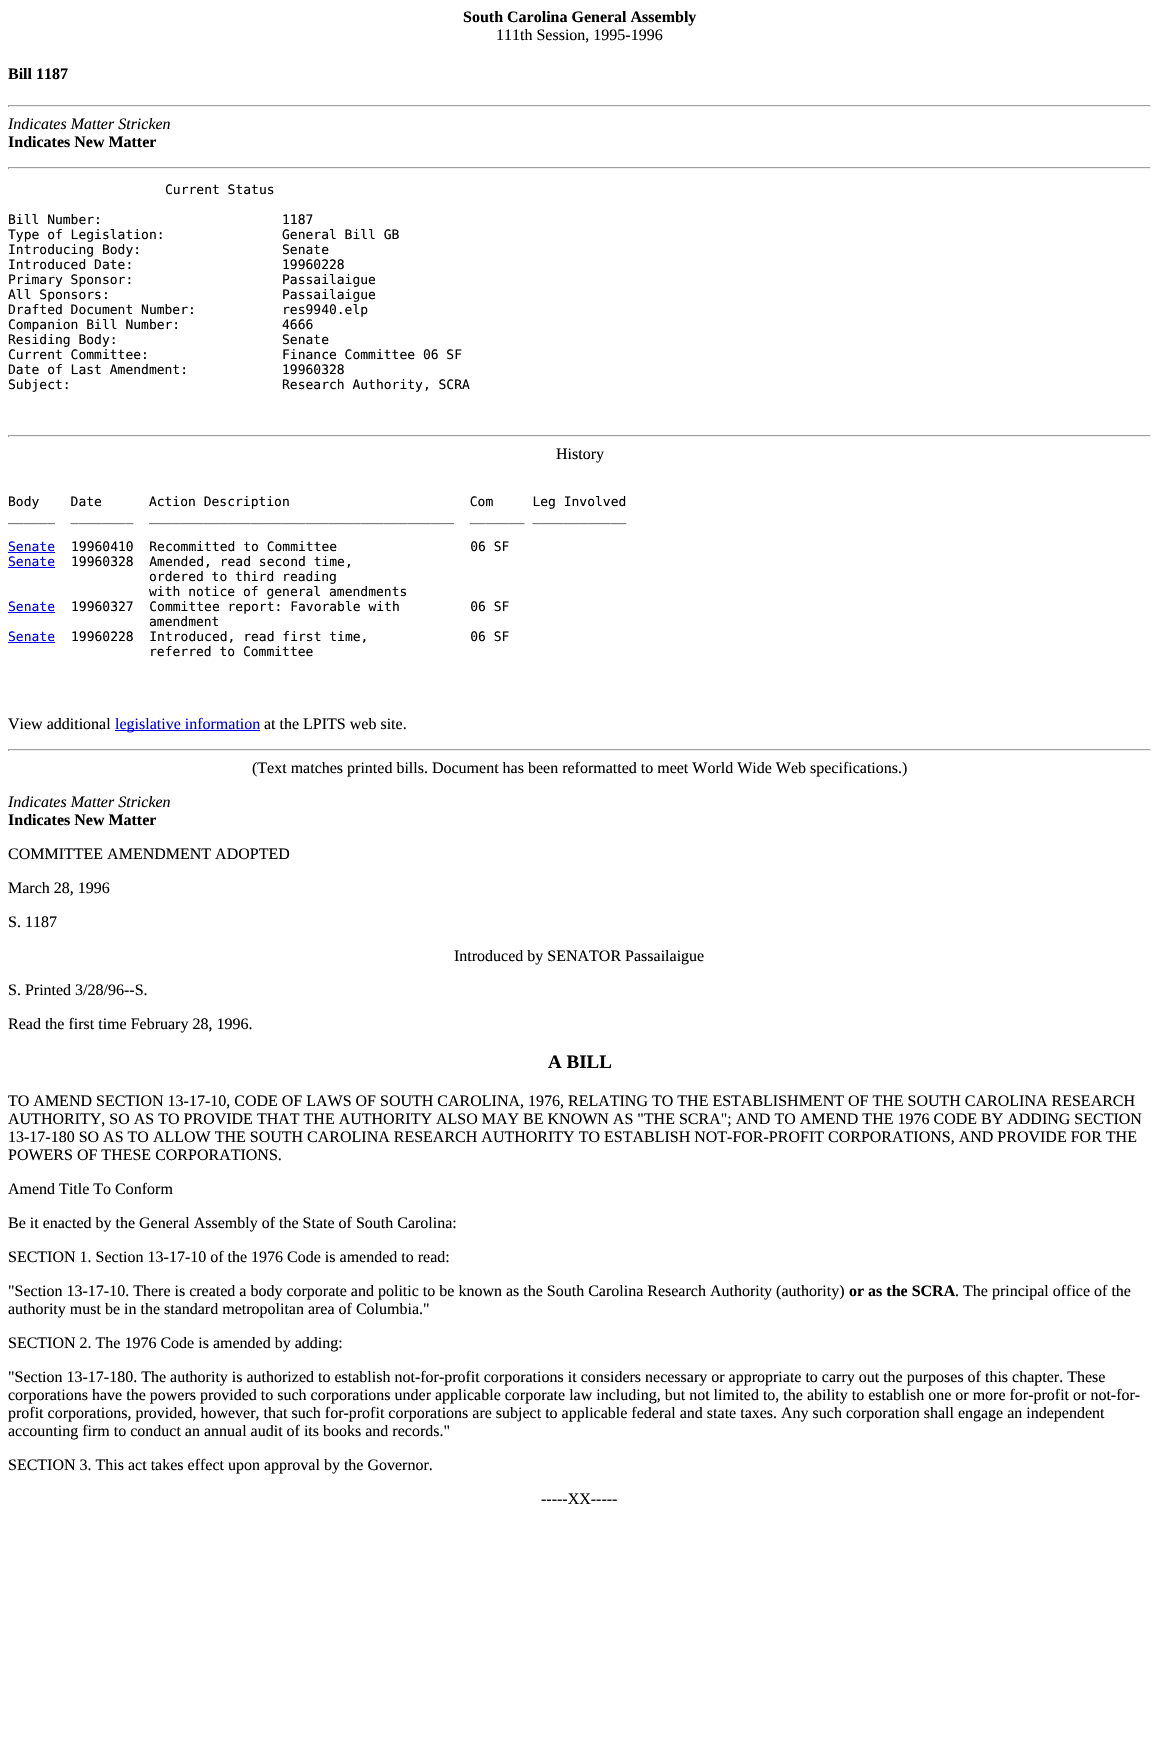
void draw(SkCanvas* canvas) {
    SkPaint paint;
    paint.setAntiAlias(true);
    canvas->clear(0xFFFFFFFF);
    SkFont font1(fontMgr->matchFamilyStyle("Liberation Serif", SkFontStyle::Bold()), 16);
    font1.setSubpixel(true);
    paint.setColor(0xFF000000);
    canvas->drawString("South Carolina General Assembly", 463, 22, font1, paint);
    SkFont font2(fontMgr->matchFamilyStyle("Liberation Serif", SkFontStyle::Normal()), 16);
    font2.setSubpixel(true);
    canvas->drawString("111th Session, 1995-1996", 496, 40, font2, paint);
    canvas->drawString("Bill 1187", 8, 79, font1, paint);
    paint.setColor(0xFF9F9F9F);
    canvas->drawRect(SkRect::MakeXYWH(8, 105, 1143, 1), paint);
    paint.setColor(0xFFEEEEEE);
    canvas->drawRect(SkRect::MakeXYWH(1150, 105, 1, 2), paint);
    canvas->drawRect(SkRect::MakeXYWH(8, 106, 1143, 1), paint);
    paint.setColor(0xFF9F9F9F);
    canvas->drawRect(SkRect::MakeXYWH(8, 105, 1, 2), paint);
    SkFont font3(fontMgr->matchFamilyStyle("Liberation Serif", SkFontStyle::Italic()), 16);
    font3.setSubpixel(true);
    paint.setColor(0xFF000000);
    canvas->drawString("Indicates Matter Stricken", 8, 129, font3, paint);
    canvas->drawString("Indicates New Matter", 8, 147, font1, paint);
    paint.setColor(0xFF9F9F9F);
    canvas->drawRect(SkRect::MakeXYWH(8, 167, 1143, 1), paint);
    paint.setColor(0xFFEEEEEE);
    canvas->drawRect(SkRect::MakeXYWH(1150, 167, 1, 2), paint);
    canvas->drawRect(SkRect::MakeXYWH(8, 168, 1143, 1), paint);
    paint.setColor(0xFF9F9F9F);
    canvas->drawRect(SkRect::MakeXYWH(8, 167, 1, 2), paint);
    SkFont font4(fontMgr->matchFamilyStyle("DejaVu Sans Mono", SkFontStyle::Normal()), 13);
    font4.setSubpixel(true);
    paint.setColor(0xFF000000);
    canvas->drawString("Current Status", 165, 194, font4, paint);
    canvas->drawString("Bill Number:", 8, 224, font4, paint);
    canvas->drawString("1187", 282, 224, font4, paint);
    canvas->drawString("Type of Legislation:", 8, 239, font4, paint);
    canvas->drawString("General Bill GB", 282, 239, font4, paint);
    canvas->drawString("Introducing Body:", 8, 254, font4, paint);
    canvas->drawString("Senate", 282, 254, font4, paint);
    canvas->drawString("Introduced Date:", 8, 269, font4, paint);
    canvas->drawString("19960228", 282, 269, font4, paint);
    canvas->drawString("Primary Sponsor:", 8, 284, font4, paint);
    canvas->drawString("Passailaigue", 282, 284, font4, paint);
    canvas->drawString("All Sponsors:", 8, 299, font4, paint);
    canvas->drawString("Passailaigue", 282, 299, font4, paint);
    canvas->drawString("Drafted Document Number:", 8, 314, font4, paint);
    canvas->drawString("res9940.elp", 282, 314, font4, paint);
    canvas->drawString("Companion Bill Number:", 8, 329, font4, paint);
    canvas->drawString("4666", 282, 329, font4, paint);
    canvas->drawString("Residing Body:", 8, 344, font4, paint);
    canvas->drawString("Senate", 282, 344, font4, paint);
    canvas->drawString("Current Committee:", 8, 359, font4, paint);
    canvas->drawString("Finance Committee 06 SF", 282, 359, font4, paint);
    canvas->drawString("Date of Last Amendment:", 8, 374, font4, paint);
    canvas->drawString("19960328", 282, 374, font4, paint);
    canvas->drawString("Subject:", 8, 389, font4, paint);
    canvas->drawString("Research Authority, SCRA", 282, 389, font4, paint);
    paint.setColor(0xFF9F9F9F);
    canvas->drawRect(SkRect::MakeXYWH(8, 435, 1143, 1), paint);
    paint.setColor(0xFFEEEEEE);
    canvas->drawRect(SkRect::MakeXYWH(1150, 435, 1, 2), paint);
    canvas->drawRect(SkRect::MakeXYWH(8, 436, 1143, 1), paint);
    paint.setColor(0xFF9F9F9F);
    canvas->drawRect(SkRect::MakeXYWH(8, 435, 1, 2), paint);
    paint.setColor(0xFF000000);
    canvas->drawString("History", 556, 459, font2, paint);
    canvas->drawString("Body    Date      Action Description                       Com     Leg Involved", 8, 506, font4, paint);
    canvas->drawString("______  ________  _______________________________________  _______ ____________", 8, 521, font4, paint);
    paint.setColor(0xFF0000EE);
    canvas->drawString("Senate", 8, 551, font4, paint);
    canvas->drawRect(SkRect::MakeXYWH(8, 552, 47, 1), paint);
    paint.setColor(0xFF000000);
    canvas->drawString("19960410  Recommitted to Committee                 06 SF", 71, 551, font4, paint);
    paint.setColor(0xFF0000EE);
    canvas->drawString("Senate", 8, 566, font4, paint);
    canvas->drawRect(SkRect::MakeXYWH(8, 567, 47, 1), paint);
    paint.setColor(0xFF000000);
    canvas->drawString("19960328  Amended, read second time,", 71, 566, font4, paint);
    canvas->drawString("ordered to third reading", 149, 581, font4, paint);
    canvas->drawString("with notice of general amendments", 149, 596, font4, paint);
    paint.setColor(0xFF0000EE);
    canvas->drawString("Senate", 8, 611, font4, paint);
    canvas->drawRect(SkRect::MakeXYWH(8, 612, 47, 1), paint);
    paint.setColor(0xFF000000);
    canvas->drawString("19960327  Committee report: Favorable with         06 SF", 71, 611, font4, paint);
    canvas->drawString("amendment", 149, 626, font4, paint);
    paint.setColor(0xFF0000EE);
    canvas->drawString("Senate", 8, 641, font4, paint);
    canvas->drawRect(SkRect::MakeXYWH(8, 642, 47, 1), paint);
    paint.setColor(0xFF000000);
    canvas->drawString("19960228  Introduced, read first time,             06 SF", 71, 641, font4, paint);
    canvas->drawString("referred to Committee", 149, 656, font4, paint);
    canvas->drawString("View additional", 8, 729, font2, paint);
    paint.setColor(0xFF0000EE);
    canvas->drawRect(SkRect::MakeXYWH(115, 730, 145, 1), paint);
    canvas->drawString("legislative information", 115, 729, font2, paint);
    paint.setColor(0xFF000000);
    canvas->drawString("at the LPITS web site.", 264, 729, font2, paint);
    paint.setColor(0xFF9F9F9F);
    canvas->drawRect(SkRect::MakeXYWH(8, 749, 1143, 1), paint);
    paint.setColor(0xFFEEEEEE);
    canvas->drawRect(SkRect::MakeXYWH(1150, 749, 1, 2), paint);
    canvas->drawRect(SkRect::MakeXYWH(8, 750, 1143, 1), paint);
    paint.setColor(0xFF9F9F9F);
    canvas->drawRect(SkRect::MakeXYWH(8, 749, 1, 2), paint);
    paint.setColor(0xFF000000);
    canvas->drawString("(Text matches printed bills. Document has been reformatted to meet World Wide Web specifications.)", 252, 773, font2, paint);
    canvas->drawString("Indicates Matter Stricken", 8, 807, font3, paint);
    canvas->drawString("Indicates New Matter", 8, 825, font1, paint);
    canvas->drawString("COMMITTEE AMENDMENT ADOPTED", 8, 859, font2, paint);
    canvas->drawString("March 28, 1996", 8, 893, font2, paint);
    canvas->drawString("S. 1187", 8, 927, font2, paint);
    canvas->drawString("Introduced by SENATOR Passailaigue", 454, 961, font2, paint);
    canvas->drawString("S. Printed 3/28/96--S.", 8, 995, font2, paint);
    canvas->drawString("Read the first time February 28, 1996.", 8, 1029, font2, paint);
    SkFont font5(fontMgr->matchFamilyStyle("Liberation Serif", SkFontStyle::Bold()), 19);
    font5.setSubpixel(true);
    canvas->drawString("A BILL", 548, 1068, font5, paint);
    canvas->drawString("TO AMEND SECTION 13-17-10, CODE OF LAWS OF SOUTH CAROLINA, 1976, RELATING TO THE ESTABLISHMENT OF THE SOUTH CAROLINA RESEARCH", 8, 1106, font2, paint);
    canvas->drawString("AUTHORITY, SO AS TO PROVIDE THAT THE AUTHORITY ALSO MAY BE KNOWN AS \"THE SCRA\"; AND TO AMEND THE 1976 CODE BY ADDING SECTION", 8, 1124, font2, paint);
    canvas->drawString("13-17-180 SO AS TO ALLOW THE SOUTH CAROLINA RESEARCH AUTHORITY TO ESTABLISH NOT-FOR-PROFIT CORPORATIONS, AND PROVIDE FOR THE", 8, 1142, font2, paint);
    canvas->drawString("POWERS OF THESE CORPORATIONS.", 8, 1160, font2, paint);
    canvas->drawString("Amend Title To Conform", 8, 1194, font2, paint);
    canvas->drawString("Be it enacted by the General Assembly of the State of South Carolina:", 8, 1228, font2, paint);
    canvas->drawString("SECTION 1. Section 13-17-10 of the 1976 Code is amended to read:", 8, 1262, font2, paint);
    canvas->drawString("\"Section 13-17-10. There is created a body corporate and politic to be known as the South Carolina Research Authority (authority)", 8, 1296, font2, paint);
    canvas->drawString("or as the SCRA", 849, 1296, font1, paint);
    canvas->drawString(". The principal office of the", 955, 1296, font2, paint);
    canvas->drawString("authority must be in the standard metropolitan area of Columbia.\"", 8, 1314, font2, paint);
    canvas->drawString("SECTION 2. The 1976 Code is amended by adding:", 8, 1348, font2, paint);
    canvas->drawString("\"Section 13-17-180. The authority is authorized to establish not-for-profit corporations it considers necessary or appropriate to carry out the purposes of this chapter. These", 8, 1382, font2, paint);
    canvas->drawString("corporations have the powers provided to such corporations under applicable corporate law including, but not limited to, the ability to establish one or more for-profit or not-for-", 8, 1400, font2, paint);
    canvas->drawString("profit corporations, provided, however, that such for-profit corporations are subject to applicable federal and state taxes. Any such corporation shall engage an independent", 8, 1418, font2, paint);
    canvas->drawString("accounting firm to conduct an annual audit of its books and records.\"", 8, 1436, font2, paint);
    canvas->drawString("SECTION 3. This act takes effect upon approval by the Governor.", 8, 1470, font2, paint);
    canvas->drawString("-----XX-----", 541, 1504, font2, paint);
}
